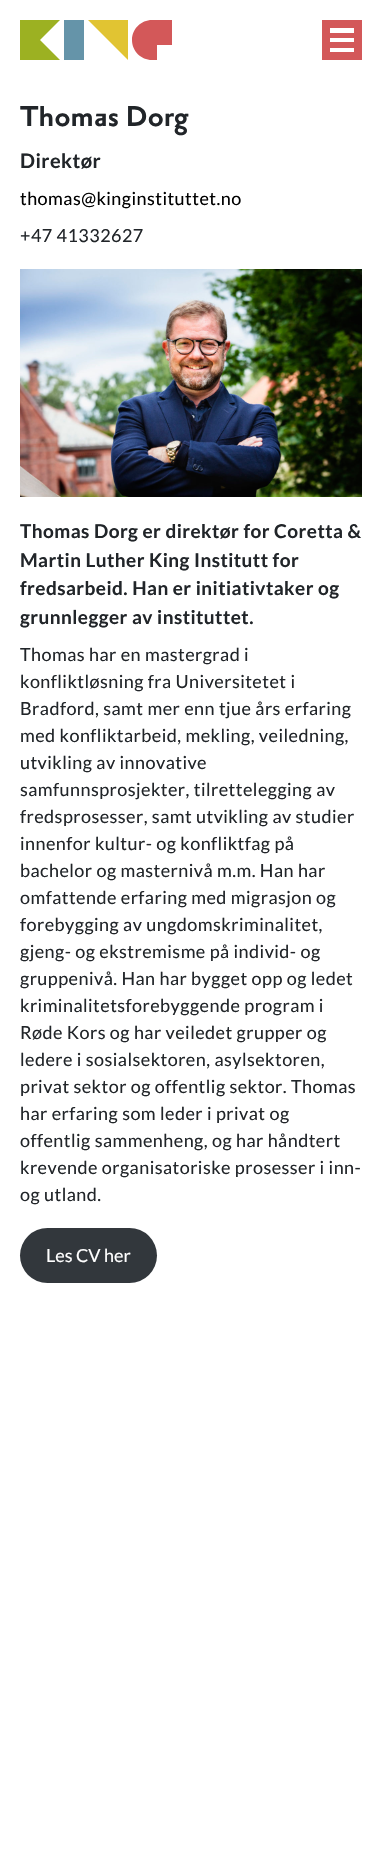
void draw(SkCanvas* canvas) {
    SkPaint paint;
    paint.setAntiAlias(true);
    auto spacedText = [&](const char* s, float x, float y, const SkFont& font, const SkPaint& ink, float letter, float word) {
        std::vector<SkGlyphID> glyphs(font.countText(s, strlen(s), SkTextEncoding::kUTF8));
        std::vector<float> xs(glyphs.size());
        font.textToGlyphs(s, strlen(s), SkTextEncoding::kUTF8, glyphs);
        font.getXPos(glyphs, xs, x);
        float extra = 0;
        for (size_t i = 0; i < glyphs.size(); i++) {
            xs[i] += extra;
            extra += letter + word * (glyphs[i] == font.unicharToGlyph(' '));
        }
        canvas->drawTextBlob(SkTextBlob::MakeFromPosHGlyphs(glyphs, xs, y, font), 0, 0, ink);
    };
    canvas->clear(0xFFFFFFFF);
    paint.setColor(0xFF9CB122);
    canvas->drawPath(SkPathBuilder(SkPathFillType::kEvenOdd).moveTo(20, 20).lineTo(20, 60).lineTo(60, 60).lineTo(40, 40).lineTo(60, 20).close().detach(), paint);
    paint.setColor(0xFF6594A9);
    canvas->drawPath(SkPathBuilder(SkPathFillType::kEvenOdd).moveTo(64, 60).lineTo(84, 60).lineTo(84, 20).lineTo(64, 20).lineTo(64, 40).close().detach(), paint);
    paint.setColor(0xFFE1C432);
    canvas->drawPath(SkPathBuilder(SkPathFillType::kEvenOdd).moveTo(128, 60).lineTo(128, 20).lineTo(88, 20).close().detach(), paint);
    paint.setColor(0xFFD35859);
    canvas->drawPath(SkPathBuilder(SkPathFillType::kEvenOdd).moveTo(152, 60).cubicTo(141, 60, 132, 51, 132, 40).cubicTo(132, 29, 141, 20, 152, 20).lineTo(172, 20).lineTo(172, 45).lineTo(157, 45).lineTo(157, 60).close().detach(), paint);
    canvas->drawRect(SkRect::MakeXYWH(322, 20, 40, 40), paint);
    paint.setColor(0xFFFFFFFF);
    canvas->drawRect(SkRect::MakeXYWH(330, 28, 24, 5), paint);
    canvas->drawRect(SkRect::MakeXYWH(330, 38, 24, 4), paint);
    canvas->drawRect(SkRect::MakeXYWH(330, 48, 24, 4), paint);
    SkFont font1(fontMgr->matchFamilyStyle("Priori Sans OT", SkFontStyle::Bold()), 35);
    font1.setSubpixel(true);
    paint.setColor(0xFF212529);
    spacedText("Thomas Dorg", 20, 126, font1, paint, 0.1f, 0);
    SkFont font2(fontMgr->matchFamilyStyle("Lato", SkFontStyle::Bold()), 20);
    font2.setSubpixel(true);
    spacedText("Direktør", 20, 168, font2, paint, 0.45f, 0);
    SkFont font3(fontMgr->matchFamilyStyle("Lato", SkFontStyle::Normal()), 18);
    font3.setSubpixel(true);
    paint.setColor(0xFF000000);
    spacedText("thomas@kinginstituttet.no", 20, 205, font3, paint, 0.45f, 0);
    paint.setColor(0xFF212529);
    spacedText("+47 41332627", 20, 242, font3, paint, 0.45f, 0);
    canvas->drawImageRect(SkImages::DeferredFromEncodedData(SkData::MakeFromFileName("img1.png")), SkRect::MakeXYWH(20, 269, 342, 228), SkSamplingOptions());
    SkFont font4(fontMgr->matchFamilyStyle("Lato", SkFontStyle::Bold()), 19);
    font4.setSubpixel(true);
    spacedText("Thomas Dorg er direktør for Coretta &", 20, 538, font4, paint, 0.45f, 0);
    spacedText("Martin Luther King Institutt for", 20, 567, font4, paint, 0.45f, 0);
    spacedText("fredsarbeid. Han er initiativtaker og", 20, 595, font4, paint, 0.45f, 0);
    spacedText("grunnlegger av instituttet.", 20, 624, font4, paint, 0.45f, 0);
    spacedText("Thomas har en mastergrad i", 20, 661, font3, paint, 0.45f, 0);
    spacedText("konfliktløsning fra Universitetet i", 20, 688, font3, paint, 0.45f, 0);
    spacedText("Bradford, samt mer enn tjue års erfaring", 20, 715, font3, paint, 0.45f, 0);
    spacedText("med konfliktarbeid, mekling, veiledning,", 20, 742, font3, paint, 0.45f, 0);
    spacedText("utvikling av innovative", 20, 769, font3, paint, 0.45f, 0);
    spacedText("samfunnsprosjekter, tilrettelegging av", 20, 796, font3, paint, 0.45f, 0);
    spacedText("fredsprosesser, samt utvikling av studier", 20, 823, font3, paint, 0.45f, 0);
    spacedText("innenfor kultur- og konfliktfag på", 20, 850, font3, paint, 0.45f, 0);
    spacedText("bachelor og masternivå m.m. Han har", 20, 877, font3, paint, 0.45f, 0);
    spacedText("omfattende erfaring med migrasjon og", 20, 904, font3, paint, 0.45f, 0);
    spacedText("forebygging av ungdomskriminalitet,", 20, 931, font3, paint, 0.45f, 0);
    spacedText("gjeng- og ekstremisme på individ- og", 20, 958, font3, paint, 0.45f, 0);
    spacedText("gruppenivå. Han har bygget opp og ledet", 20, 985, font3, paint, 0.45f, 0);
    spacedText("kriminalitetsforebyggende program i", 20, 1012, font3, paint, 0.45f, 0);
    spacedText("Røde Kors og har veiledet grupper og", 20, 1039, font3, paint, 0.45f, 0);
    spacedText("ledere i sosialsektoren, asylsektoren,", 20, 1066, font3, paint, 0.45f, 0);
    spacedText("privat sektor og offentlig sektor. Thomas", 20, 1093, font3, paint, 0.45f, 0);
    spacedText("har erfaring som leder i privat og", 20, 1120, font3, paint, 0.45f, 0);
    spacedText("offentlig sammenheng, og har håndtert", 20, 1147, font3, paint, 0.45f, 0);
    spacedText("krevende organisatoriske prosesser i inn-", 20, 1174, font3, paint, 0.45f, 0);
    spacedText("og utland.", 20, 1201, font3, paint, 0.45f, 0);
    paint.setColor(0xFF32373C);
    canvas->drawRoundRect(SkRect::MakeXYWH(20, 1228, 137, 55), 27.5f, 27.5f, paint);
    paint.setColor(0xFFFFFFFF);
    canvas->drawString("Les CV her", 46, 1262, font3, paint);
}
